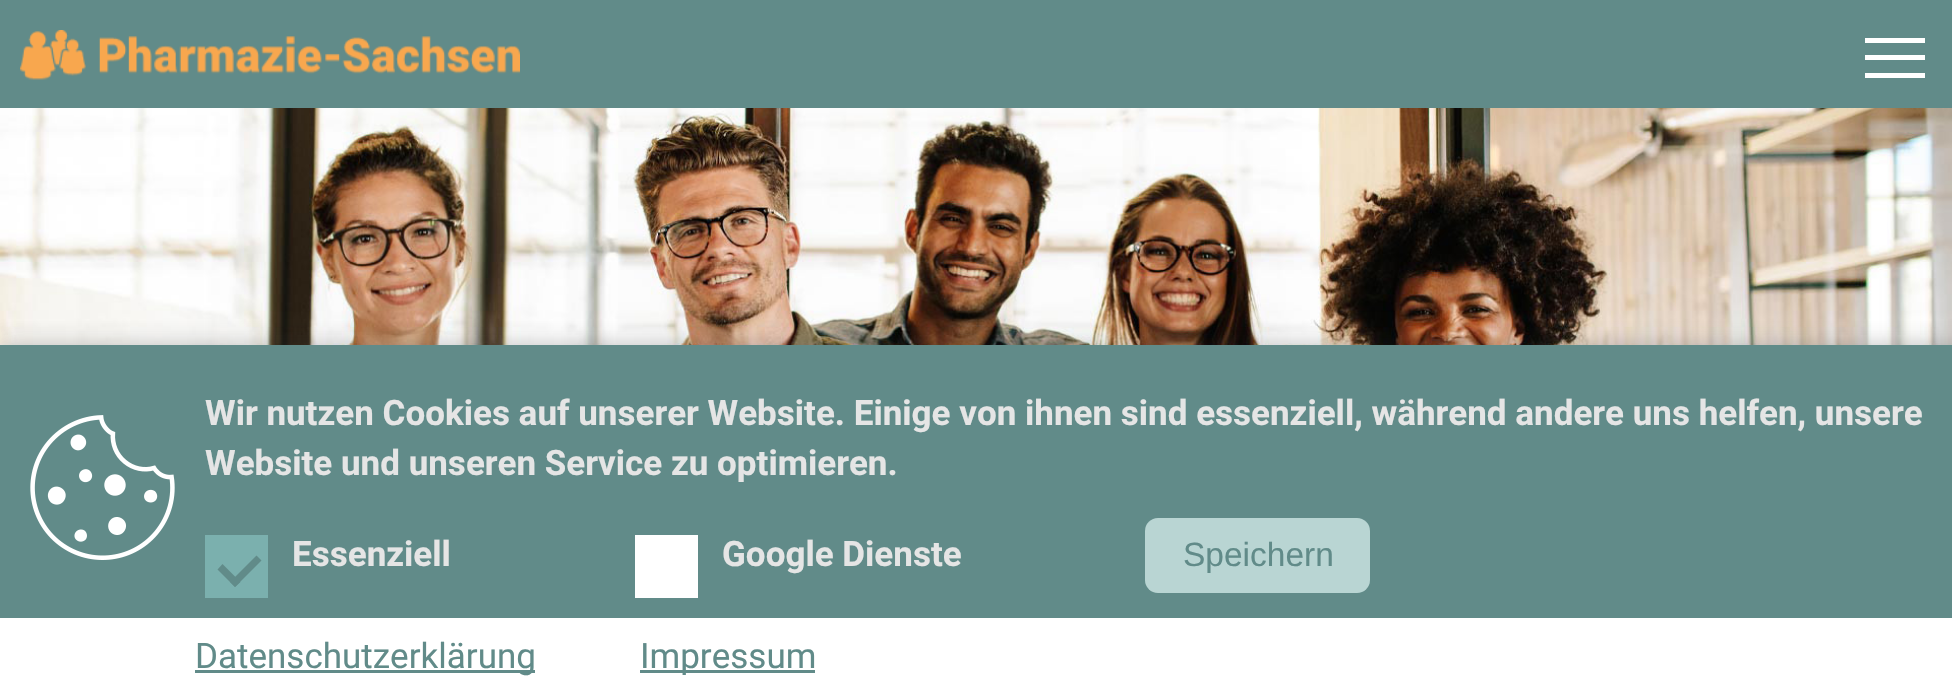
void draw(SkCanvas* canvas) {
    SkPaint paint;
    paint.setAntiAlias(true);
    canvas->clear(0xFFFFFFFF);
    paint.setColor(0xFF618B89);
    canvas->drawRect(SkRect::MakeXYWH(0, 0, 1952, 108), paint);
    canvas->drawImageRect(SkImages::DeferredFromEncodedData(SkData::MakeFromFileName("img1.png")), SkRect::MakeXYWH(20, 30, 500, 50), SkSamplingOptions());
    paint.setColor(0xFFFFFFFF);
    canvas->drawRect(SkRect::MakeXYWH(1865, 55, 60, 5), paint);
    canvas->drawRect(SkRect::MakeXYWH(1865, 38, 60, 5), paint);
    canvas->drawRect(SkRect::MakeXYWH(1865, 73, 60, 5), paint);
    canvas->drawImageRect(SkImages::DeferredFromEncodedData(SkData::MakeFromFileName("img2.png")), SkRect::MakeXYWH(0, 108, 1952, 237), SkSamplingOptions());
    paint.setColor(0x4D333333);
    paint.setMaskFilter(SkMaskFilter::MakeBlur(kNormal_SkBlurStyle, 11));
    canvas->drawRect(SkRect::MakeXYWH(0, 345, 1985, 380), paint);
    paint.setMaskFilter(nullptr);
    paint.setColor(0xFF618B89);
    canvas->drawRect(SkRect::MakeXYWH(0, 345, 1952, 273), paint);
    canvas->drawImageRect(SkImages::DeferredFromEncodedData(SkData::MakeFromFileName("img3.png")), SkRect::MakeXYWH(30, 415, 145, 145), SkSamplingOptions());
    SkFont font1(fontMgr->matchFamilyStyle("Roboto", SkFontStyle::Bold()), 35);
    font1.setSubpixel(true);
    paint.setColor(0xFFE5E5E5);
    canvas->drawString("Wir nutzen Cookies auf unserer Website. Einige von ihnen sind essenziell, während andere uns helfen, unsere", 205, 425, font1, paint);
    canvas->drawString("Website und unseren Service zu optimieren.", 205, 475, font1, paint);
    paint.setColor(0xFF7BB0AE);
    canvas->drawRect(SkRect::MakeXYWH(205, 535, 63, 63), paint);
    paint.setColor(0xFF618B89);
    canvas->drawPath(SkPathBuilder().moveTo(256.5f, 555.5f).lineTo(261.5f, 560.5f).lineTo(235, 587).lineTo(230, 582).close().detach(), paint);
    canvas->drawPath(SkPathBuilder().moveTo(222.5f, 564).lineTo(240.5f, 582).lineTo(235, 587).lineTo(217.5f, 569.5f).close().detach(), paint);
    paint.setColor(0xFFE5E5E5);
    canvas->drawString("Essenziell", 292, 566, font1, paint);
    paint.setColor(0xFFFFFFFF);
    canvas->drawRect(SkRect::MakeXYWH(635, 535, 63, 63), paint);
    paint.setColor(0xFFE5E5E5);
    canvas->drawString("Google Dienste", 722, 566, font1, paint);
    paint.setColor(0xFFB9D5D3);
    canvas->drawRoundRect(SkRect::MakeXYWH(1145, 518, 225, 75), 13, 13, paint);
    SkFont font2(fontMgr->matchFamilyStyle("Liberation Sans", SkFontStyle::Normal()), 33.5f);
    font2.setSubpixel(true);
    paint.setColor(0xFF618B89);
    canvas->drawString("Speichern", 1183, 566, font2, paint);
    paint.setColor(0xFFFFFFFF);
    canvas->drawRect(SkRect::MakeXYWH(0, 618, 1952, 74), paint);
    paint.setColor(0xFF618B89);
    canvas->drawRect(SkRect::MakeXYWH(195, 670, 340, 3), paint);
    SkFont font3(fontMgr->matchFamilyStyle("Roboto", SkFontStyle::Normal()), 35);
    font3.setSubpixel(true);
    canvas->drawString("Datenschutzerklärung", 195, 668, font3, paint);
    canvas->drawRect(SkRect::MakeXYWH(640, 670, 175, 3), paint);
    canvas->drawString("Impressum", 640, 668, font3, paint);
}
